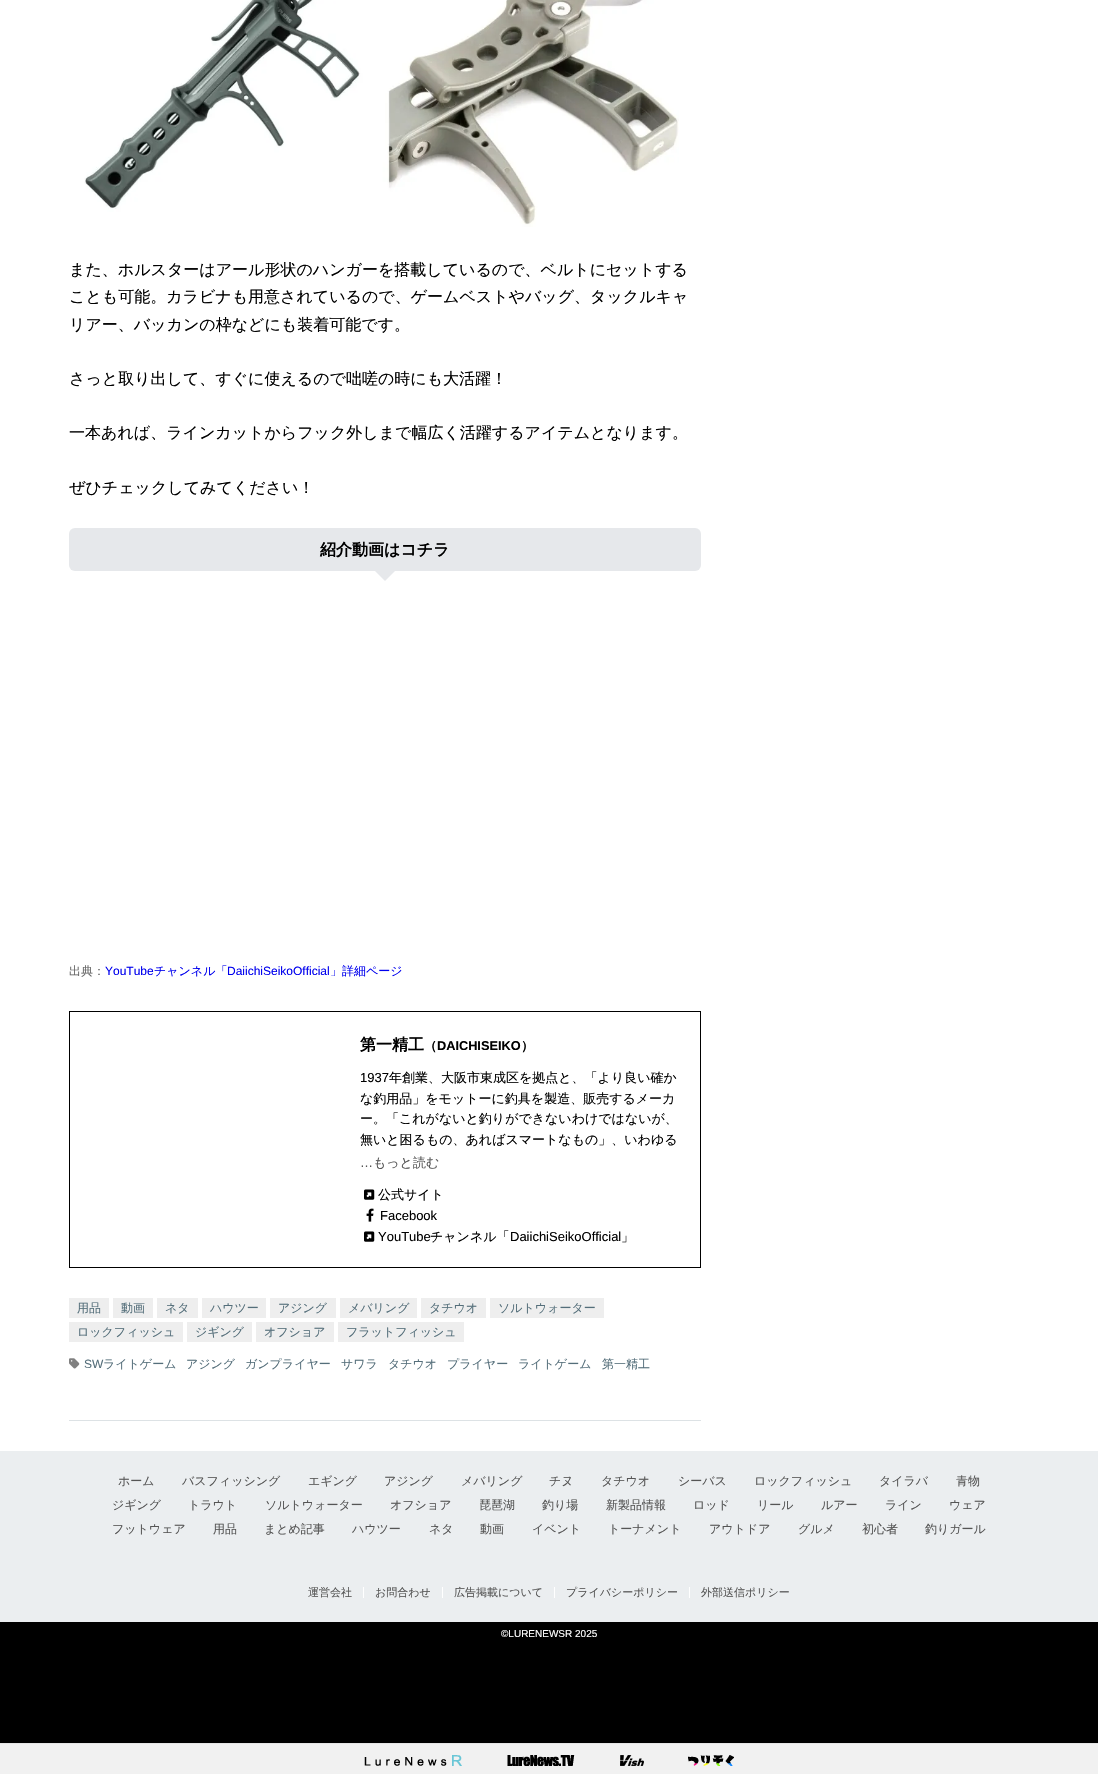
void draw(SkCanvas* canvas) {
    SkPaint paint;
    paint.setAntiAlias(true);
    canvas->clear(0xFFFFFFFF);
    paint.setColor(0xFFDDE2E5);
    canvas->drawRect(SkRect::MakeXYWH(69, 1420, 632, 1), paint);
    canvas->drawImageRect(SkImages::DeferredFromEncodedData(SkData::MakeFromFileName("img1.png")), SkRect::MakeXYWH(84, 0, 595, 227), SkSamplingOptions());
    SkFont font1(fontMgr->matchFamilyStyle("WenQuanYi Zen Hei", SkFontStyle(500, SkFontStyle::kNormal_Width, SkFontStyle::kUpright_Slant)), 16);
    font1.setSubpixel(true);
    paint.setColor(0xFF000000);
    canvas->drawString("また、ホルスターはアール形状のハンガーを搭載しているので、ベルトにセットする", 69, 275, font1, paint);
    canvas->drawString("ことも可能。カラビナも用意されているので、ゲームベストやバッグ、タックルキャ", 69, 302, font1, paint);
    canvas->drawString("リアー、バッカンの枠などにも装着可能です。", 69, 330, font1, paint);
    canvas->drawString("さっと取り出して、すぐに使えるので咄嗟の時にも大活躍！", 69, 384, font1, paint);
    canvas->drawString("一本あれば、ラインカットからフック外しまで幅広く活躍するアイテムとなります。", 69, 438, font1, paint);
    canvas->drawString("ぜひチェックしてみてください！", 69, 493, font1, paint);
    paint.setColor(0xFFE6E8EB);
    canvas->drawRoundRect(SkRect::MakeXYWH(69, 528, 632, 43), 6, 6, paint);
    SkFont font2(fontMgr->matchFamilyStyle("WenQuanYi Zen Hei", SkFontStyle::Bold()), 16);
    font2.setSubpixel(true);
    paint.setColor(0xFF000000);
    canvas->drawString("紹介動画はコチラ", 320, 555, font2, paint);
    paint.setColor(0xFFE6E8EB);
    canvas->drawPath(SkPathBuilder().moveTo(375, 571).lineTo(395, 571).lineTo(385, 581).close().detach(), paint);
    SkFont font3(fontMgr->matchFamilyStyle("WenQuanYi Zen Hei", SkFontStyle(500, SkFontStyle::kNormal_Width, SkFontStyle::kUpright_Slant)), 12);
    font3.setSubpixel(true);
    paint.setColor(0xFF666666);
    canvas->drawString("出典：", 69, 975, font3, paint);
    SkFont font4(fontMgr->matchFamilyStyle("Liberation Sans", SkFontStyle::Normal()), 12);
    font4.setSubpixel(true);
    paint.setColor(0xFF0000EE);
    canvas->drawString("YouTube", 105, 975, font4, paint);
    canvas->drawString("チャンネル「", 154, 975, font3, paint);
    canvas->drawString("DaiichiSeikoOfficial", 227, 975, font4, paint);
    canvas->drawString("」詳細ページ", 330, 975, font3, paint);
    paint.setStyle(SkPaint::kStroke_Style);
    paint.setStrokeWidth(1);
    paint.setColor(0xFF000000);
    canvas->drawRect(SkRect::MakeXYWH(69.5f, 1011.5f, 631, 256), paint);
    paint.setStyle(SkPaint::kFill_Style);
    canvas->drawString("第一精工", 360, 1050, font2, paint);
    SkFont font5(fontMgr->matchFamilyStyle("WenQuanYi Zen Hei", SkFontStyle::Bold()), 12.75f);
    font5.setSubpixel(true);
    canvas->drawString("（", 424, 1050, font5, paint);
    SkFont font6(fontMgr->matchFamilyStyle("Liberation Sans", SkFontStyle::Bold()), 12.75f);
    font6.setSubpixel(true);
    canvas->drawString("DAICHISEIKO", 437, 1050, font6, paint);
    canvas->drawString("）", 521, 1050, font5, paint);
    SkFont font7(fontMgr->matchFamilyStyle("Liberation Sans", SkFontStyle::Normal()), 13);
    font7.setSubpixel(true);
    canvas->drawString("1937", 360, 1082, font7, paint);
    SkFont font8(fontMgr->matchFamilyStyle("WenQuanYi Zen Hei", SkFontStyle(500, SkFontStyle::kNormal_Width, SkFontStyle::kUpright_Slant)), 13);
    font8.setSubpixel(true);
    canvas->drawString("年創業、大阪市東成区を拠点と、「より良い確か", 389, 1082, font8, paint);
    canvas->drawString("な釣用品」をモットーに釣具を製造、販売するメーカ", 360, 1103, font8, paint);
    canvas->drawString("ー。「これがないと釣りができないわけではないが、", 360, 1123, font8, paint);
    canvas->drawString("無いと困るもの、あればスマートなもの」、いわゆる", 360, 1144, font8, paint);
    paint.setColor(0xFF555555);
    canvas->drawString("…", 360, 1167, font7, paint);
    canvas->drawString("もっと読む", 373, 1167, font8, paint);
    canvas->drawImageRect(SkImages::DeferredFromEncodedData(SkData::MakeFromFileName("img2.png")), SkRect::MakeXYWH(364, 1189, 11, 11), SkSamplingOptions());
    paint.setColor(0xFF000000);
    canvas->drawString("公式サイト", 378, 1199, font8, paint);
    canvas->drawImageRect(SkImages::DeferredFromEncodedData(SkData::MakeFromFileName("img3.png")), SkRect::MakeXYWH(366, 1208, 8, 14), SkSamplingOptions());
    canvas->drawString("Facebook", 380, 1220, font7, paint);
    canvas->drawImageRect(SkImages::DeferredFromEncodedData(SkData::MakeFromFileName("img2.png")), SkRect::MakeXYWH(364, 1231, 11, 11), SkSamplingOptions());
    canvas->drawString("YouTube", 378, 1241, font7, paint);
    canvas->drawString("チャンネル「", 430, 1241, font8, paint);
    canvas->drawString("DaiichiSeikoOfficial", 510, 1241, font7, paint);
    canvas->drawString("」", 621, 1241, font8, paint);
    paint.setColor(0xFFEEEEEE);
    canvas->drawRect(SkRect::MakeXYWH(69, 1298, 40, 20), paint);
    paint.setColor(0xFF546E7A);
    canvas->drawString("用品", 77, 1312, font3, paint);
    paint.setColor(0xFFEEEEEE);
    canvas->drawRect(SkRect::MakeXYWH(113, 1298, 40, 20), paint);
    paint.setColor(0xFF546E7A);
    canvas->drawString("動画", 121, 1312, font3, paint);
    paint.setColor(0xFFEEEEEE);
    canvas->drawRect(SkRect::MakeXYWH(157, 1298, 41, 20), paint);
    paint.setColor(0xFF546E7A);
    canvas->drawString("ネタ", 165, 1312, font3, paint);
    paint.setColor(0xFFEEEEEE);
    canvas->drawRect(SkRect::MakeXYWH(202, 1298, 64, 20), paint);
    paint.setColor(0xFF546E7A);
    canvas->drawString("ハウツー", 210, 1312, font3, paint);
    paint.setColor(0xFFEEEEEE);
    canvas->drawRect(SkRect::MakeXYWH(270, 1298, 66, 20), paint);
    paint.setColor(0xFF546E7A);
    canvas->drawString("アジング", 278, 1312, font3, paint);
    paint.setColor(0xFFEEEEEE);
    canvas->drawRect(SkRect::MakeXYWH(340, 1298, 77, 20), paint);
    paint.setColor(0xFF546E7A);
    canvas->drawString("メバリング", 348, 1312, font3, paint);
    paint.setColor(0xFFEEEEEE);
    canvas->drawRect(SkRect::MakeXYWH(421, 1298, 65, 20), paint);
    paint.setColor(0xFF546E7A);
    canvas->drawString("タチウオ", 429, 1312, font3, paint);
    paint.setColor(0xFFEEEEEE);
    canvas->drawRect(SkRect::MakeXYWH(490, 1298, 114, 20), paint);
    paint.setColor(0xFF546E7A);
    canvas->drawString("ソルトウォーター", 498, 1312, font3, paint);
    paint.setColor(0xFFEEEEEE);
    canvas->drawRect(SkRect::MakeXYWH(69, 1322, 114, 20), paint);
    paint.setColor(0xFF546E7A);
    canvas->drawString("ロックフィッシュ", 77, 1336, font3, paint);
    paint.setColor(0xFFEEEEEE);
    canvas->drawRect(SkRect::MakeXYWH(187, 1322, 65, 20), paint);
    paint.setColor(0xFF546E7A);
    canvas->drawString("ジギング", 195, 1336, font3, paint);
    paint.setColor(0xFFEEEEEE);
    canvas->drawRect(SkRect::MakeXYWH(256, 1322, 78, 20), paint);
    paint.setColor(0xFF546E7A);
    canvas->drawString("オフショア", 264, 1336, font3, paint);
    paint.setColor(0xFFEEEEEE);
    canvas->drawRect(SkRect::MakeXYWH(338, 1322, 126, 20), paint);
    paint.setColor(0xFF546E7A);
    canvas->drawString("フラットフィッシュ", 346, 1336, font3, paint);
    canvas->drawImageRect(SkImages::DeferredFromEncodedData(SkData::MakeFromFileName("img4.png")), SkRect::MakeXYWH(69, 1358, 11, 11), SkSamplingOptions());
    canvas->drawString("SW", 84, 1368, font4, paint);
    canvas->drawString("ライトゲーム", 103, 1368, font3, paint);
    canvas->drawString("アジング", 186, 1368, font3, paint);
    canvas->drawString("ガンプライヤー", 245, 1368, font3, paint);
    canvas->drawString("サワラ", 341, 1368, font3, paint);
    canvas->drawString("タチウオ", 388, 1368, font3, paint);
    canvas->drawString("プライヤー", 447, 1368, font3, paint);
    canvas->drawString("ライトゲーム", 518, 1368, font3, paint);
    canvas->drawString("第一精工", 602, 1368, font3, paint);
    paint.setColor(0xFFEBEEF0);
    canvas->drawRect(SkRect::MakeXYWH(0, 1451, 1098, 171), paint);
    paint.setColor(0xFF555555);
    canvas->drawString("ホーム", 118, 1485, font3, paint);
    canvas->drawString("バスフィッシング", 182, 1485, font3, paint);
    canvas->drawString("エギング", 308, 1485, font3, paint);
    canvas->drawString("アジング", 384, 1485, font3, paint);
    canvas->drawString("メバリング", 461, 1485, font3, paint);
    canvas->drawString("チヌ", 549, 1485, font3, paint);
    canvas->drawString("タチウオ", 601, 1485, font3, paint);
    canvas->drawString("シーバス", 678, 1485, font3, paint);
    canvas->drawString("ロックフィッシュ", 754, 1485, font3, paint);
    canvas->drawString("タイラバ", 879, 1485, font3, paint);
    canvas->drawString("青物", 956, 1485, font3, paint);
    canvas->drawString("ジギング", 112, 1509, font3, paint);
    canvas->drawString("トラウト", 188, 1509, font3, paint);
    canvas->drawString("ソルトウォーター", 265, 1509, font3, paint);
    canvas->drawString("オフショア", 390, 1509, font3, paint);
    canvas->drawString("琵琶湖", 479, 1509, font3, paint);
    canvas->drawString("釣り場", 542, 1509, font3, paint);
    canvas->drawString("新製品情報", 606, 1509, font3, paint);
    canvas->drawString("ロッド", 693, 1509, font3, paint);
    canvas->drawString("リール", 757, 1509, font3, paint);
    canvas->drawString("ルアー", 821, 1509, font3, paint);
    canvas->drawString("ライン", 885, 1509, font3, paint);
    canvas->drawString("ウェア", 949, 1509, font3, paint);
    canvas->drawString("フットウェア", 112, 1533, font3, paint);
    canvas->drawString("用品", 213, 1533, font3, paint);
    canvas->drawString("まとめ記事", 264, 1533, font3, paint);
    canvas->drawString("ハウツー", 352, 1533, font3, paint);
    canvas->drawString("ネタ", 429, 1533, font3, paint);
    canvas->drawString("動画", 480, 1533, font3, paint);
    canvas->drawString("イベント", 532, 1533, font3, paint);
    canvas->drawString("トーナメント", 608, 1533, font3, paint);
    canvas->drawString("アウトドア", 709, 1533, font3, paint);
    canvas->drawString("グルメ", 798, 1533, font3, paint);
    canvas->drawString("初心者", 862, 1533, font3, paint);
    canvas->drawString("釣りガール", 925, 1533, font3, paint);
    paint.setColor(0xFFFFFFFF);
    canvas->drawRect(SkRect::MakeXYWH(363, 1587, 1, 11), paint);
    SkFont font9(fontMgr->matchFamilyStyle("WenQuanYi Zen Hei", SkFontStyle(500, SkFontStyle::kNormal_Width, SkFontStyle::kUpright_Slant)), 11);
    font9.setSubpixel(true);
    paint.setColor(0xFF555555);
    canvas->drawString("運営会社", 308, 1596, font9, paint);
    paint.setColor(0xFFFFFFFF);
    canvas->drawRect(SkRect::MakeXYWH(442, 1587, 1, 11), paint);
    paint.setColor(0xFF555555);
    canvas->drawString("お問合わせ", 375, 1596, font9, paint);
    paint.setColor(0xFFFFFFFF);
    canvas->drawRect(SkRect::MakeXYWH(554, 1587, 1, 11), paint);
    paint.setColor(0xFF555555);
    canvas->drawString("広告掲載について", 454, 1596, font9, paint);
    paint.setColor(0xFFFFFFFF);
    canvas->drawRect(SkRect::MakeXYWH(689, 1587, 1, 11), paint);
    paint.setColor(0xFF555555);
    canvas->drawString("プライバシーポリシー", 566, 1596, font9, paint);
    canvas->drawString("外部送信ポリシー", 701, 1596, font9, paint);
    paint.setColor(0xFF000000);
    canvas->drawRect(SkRect::MakeXYWH(0, 1622, 1098, 121), paint);
    SkFont font10(fontMgr->matchFamilyStyle("Liberation Sans", SkFontStyle::Normal()), 10);
    font10.setSubpixel(true);
    paint.setColor(0xFFFFFFFF);
    canvas->drawString("©LURENEWSR 2025", 501, 1637, font10, paint);
    paint.setColor(0xFFF1F1F1);
    canvas->drawRect(SkRect::MakeXYWH(0, 1744, 1098, 30), paint);
    paint.setColor(0xFFE4E4E4);
    canvas->drawRect(SkRect::MakeXYWH(0, 1743, 1098, 1), paint);
    canvas->drawImageRect(SkImages::DeferredFromEncodedData(SkData::MakeFromFileName("img5.png")), SkRect::MakeXYWH(364, 1755, 98, 11), SkSamplingOptions());
    canvas->drawImageRect(SkImages::DeferredFromEncodedData(SkData::MakeFromFileName("img6.png")), SkRect::MakeXYWH(507, 1755, 68, 11), SkSamplingOptions());
    canvas->drawImageRect(SkImages::DeferredFromEncodedData(SkData::MakeFromFileName("img7.png")), SkRect::MakeXYWH(620, 1755, 24, 11), SkSamplingOptions());
    canvas->drawImageRect(SkImages::DeferredFromEncodedData(SkData::MakeFromFileName("img8.png")), SkRect::MakeXYWH(688, 1755, 46, 11), SkSamplingOptions());
}
